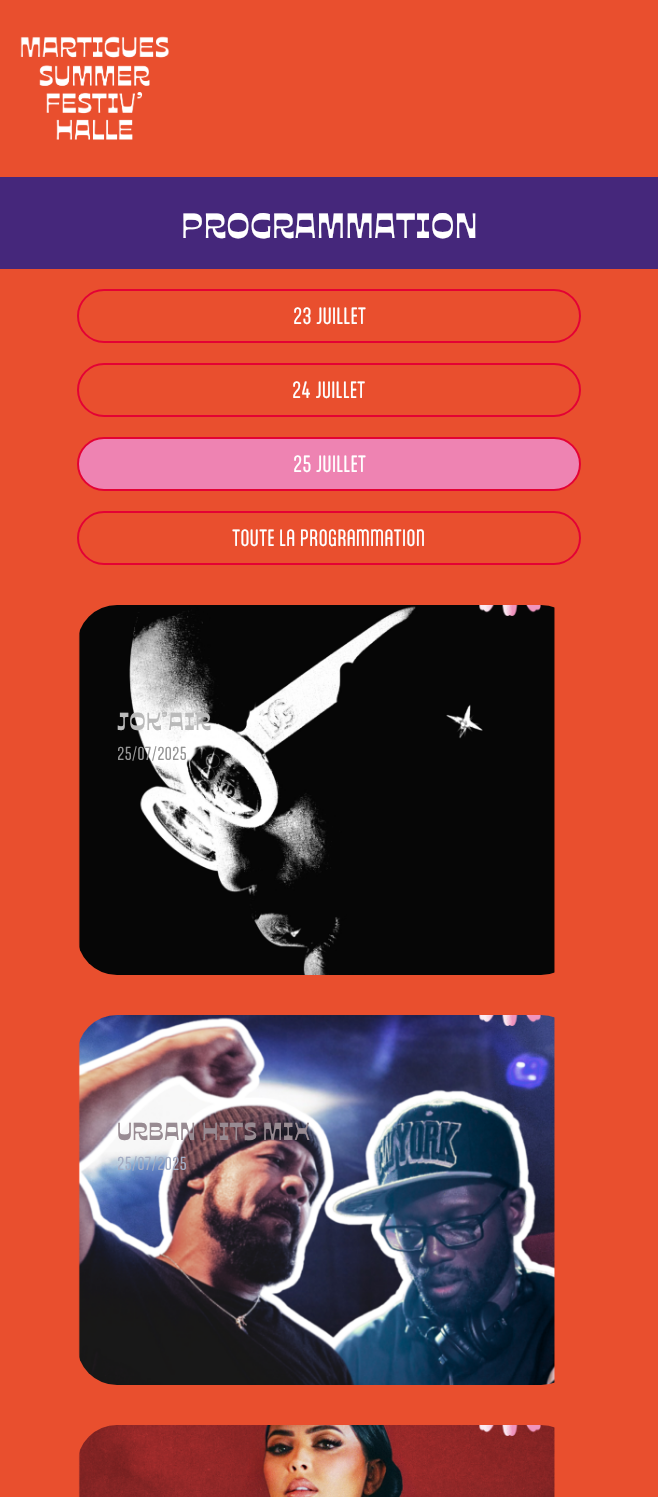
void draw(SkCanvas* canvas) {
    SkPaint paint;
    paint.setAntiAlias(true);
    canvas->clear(0xFFE94F2E);
    canvas->drawImageRect(SkImages::DeferredFromEncodedData(SkData::MakeFromFileName("img1.png")), SkRect::MakeXYWH(20, 36, 150, 104), SkSamplingOptions());
    paint.setColor(0xFF45277B);
    canvas->drawRect(SkRect::MakeXYWH(0, 177, 658, 92), paint);
    SkFont font1(fontMgr->matchFamilyStyle("Ojuju", SkFontStyle::Bold()), 35);
    font1.setSubpixel(true);
    paint.setColor(0xFFFFFFFF);
    canvas->drawString("PROGRAMMATION", 181, 238, font1, paint);
    paint.setStyle(SkPaint::kStroke_Style);
    paint.setStrokeWidth(2);
    paint.setColor(0xFFE40134);
    canvas->drawRoundRect(SkRect::MakeXYWH(78, 290, 502, 52), 26, 26, paint);
    SkFont font2(fontMgr->matchFamilyStyle("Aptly", SkFontStyle::Normal()), 20);
    font2.setSubpixel(true);
    paint.setStyle(SkPaint::kFill_Style);
    paint.setColor(0xFFFFFFFF);
    canvas->drawString("23 JUILLET", 293, 324, font2, paint);
    paint.setStyle(SkPaint::kStroke_Style);
    paint.setColor(0xFFE40134);
    canvas->drawRoundRect(SkRect::MakeXYWH(78, 364, 502, 52), 26, 26, paint);
    paint.setStyle(SkPaint::kFill_Style);
    paint.setColor(0xFFFFFFFF);
    canvas->drawString("24 JUILLET", 292, 398, font2, paint);
    paint.setColor(0xFFEE83B2);
    canvas->drawRoundRect(SkRect::MakeXYWH(78, 438, 502, 52), 26, 26, paint);
    paint.setStyle(SkPaint::kStroke_Style);
    paint.setColor(0xFFE40134);
    canvas->drawRoundRect(SkRect::MakeXYWH(78, 438, 502, 52), 26, 26, paint);
    paint.setStyle(SkPaint::kFill_Style);
    paint.setColor(0xFFFFFFFF);
    canvas->drawString("25 JUILLET", 293, 472, font2, paint);
    paint.setStyle(SkPaint::kStroke_Style);
    paint.setColor(0xFFE40134);
    canvas->drawRoundRect(SkRect::MakeXYWH(78, 512, 502, 52), 26, 26, paint);
    paint.setStyle(SkPaint::kFill_Style);
    paint.setColor(0xFFFFFFFF);
    canvas->drawString("TOUTE LA PROGRAMMATION", 232, 546, font2, paint);
    canvas->drawImageRect(SkImages::DeferredFromEncodedData(SkData::MakeFromFileName("img2.png")), SkRect::MakeXYWH(78, 605, 477, 370), SkSamplingOptions());
    SkFont font3(fontMgr->matchFamilyStyle("Ojuju", SkFontStyle::Bold()), 24.75f);
    font3.setSubpixel(true);
    paint.setColor(0xFFBABABA);
    canvas->drawString("JOK’AIR", 117, 730, font3, paint);
    SkFont font4(fontMgr->matchFamilyStyle("Aptly", SkFontStyle::Normal()), 16);
    font4.setSubpixel(true);
    paint.setColor(0xFF959595);
    canvas->drawString("25/07/2025", 117, 760, font4, paint);
    canvas->drawImageRect(SkImages::DeferredFromEncodedData(SkData::MakeFromFileName("img3.png")), SkRect::MakeXYWH(78, 1015, 477, 370), SkSamplingOptions());
    paint.setColor(0xFF988B92);
    canvas->drawString("URBAN HITS MIX", 117, 1140, font3, paint);
    paint.setColor(0xFFA3ACC3);
    canvas->drawString("25/07/2025", 117, 1170, font4, paint);
    canvas->drawImageRect(SkImages::DeferredFromEncodedData(SkData::MakeFromFileName("img4.png")), SkRect::MakeXYWH(78, 1425, 477, 72), SkSamplingOptions());
}
